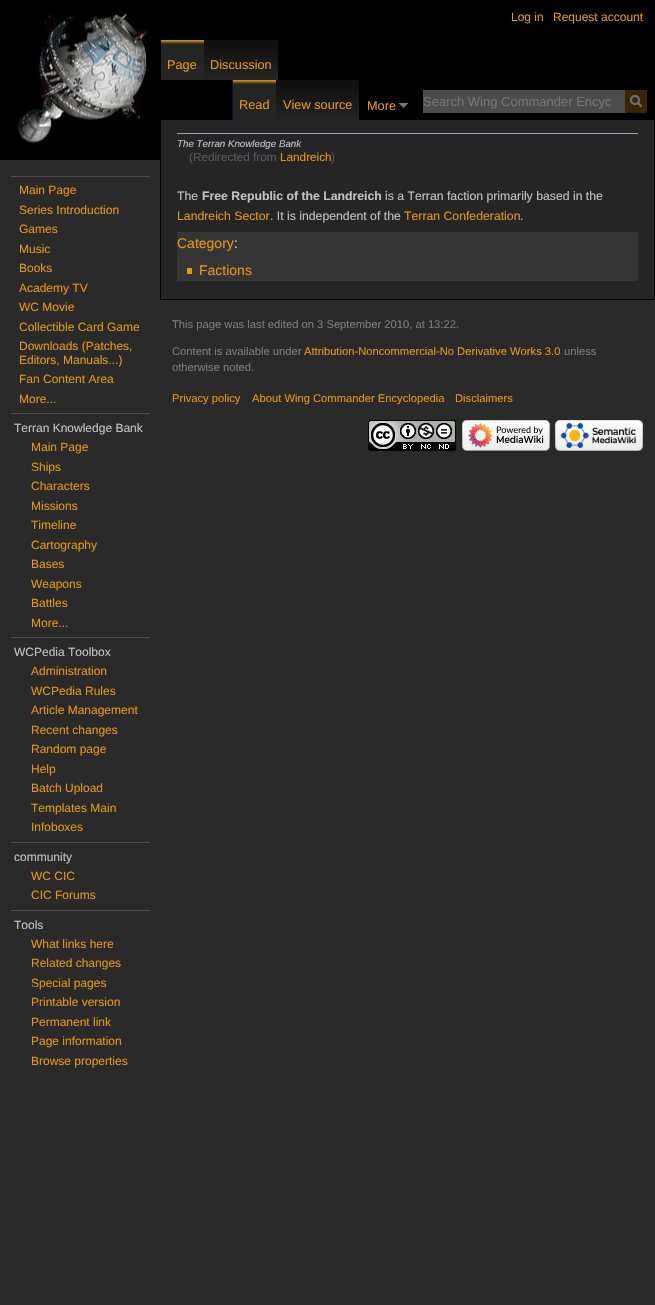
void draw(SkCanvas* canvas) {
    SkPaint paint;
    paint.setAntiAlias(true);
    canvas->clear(0xFF2A2A2A);
    paint.setColor(0xFF252525);
    canvas->drawRect(SkRect::MakeXYWH(161, 120, 493, 179), paint);
    paint.setStyle(SkPaint::kStroke_Style);
    paint.setStrokeWidth(1);
    paint.setColor(0xFF000000);
    canvas->drawRect(SkRect::MakeXYWH(160.5f, 79.5f, 494, 220), paint);
    paint.setStyle(SkPaint::kFill_Style);
    canvas->drawRect(SkRect::MakeXYWH(160, 0, 495, 120), paint);
    SkFont font1(fontMgr->matchFamilyStyle("Liberation Sans", SkFontStyle::Normal()), 12);
    font1.setSubpixel(true);
    paint.setColor(0xFFE69710);
    canvas->drawString("Log in", 511, 21, font1, paint);
    canvas->drawString("Request account", 553, 21, font1, paint);
    {
        const SkColor colors[] = {0xFFE69710, 0xFF252525};
        const float stops[] = {0, 0.1f};
        const SkPoint ends[] = {{183, 40}, {183, 80}};
        paint.setShader(SkGradientShader::MakeLinear(ends, colors, stops, 2, SkTileMode::kClamp));
        paint.setAlpha(255);
    }
    canvas->drawRect(SkRect::MakeXYWH(161, 40, 43, 40), paint);
    SkFont font2(fontMgr->matchFamilyStyle("Liberation Sans", SkFontStyle::Normal()), 12.75f);
    font2.setSubpixel(true);
    paint.setShader(nullptr);
    paint.setColor(0xFFE69710);
    canvas->drawString("Page", 167, 69, font2, paint);
    {
        const SkColor colors[] = {0xFF111111, 0xFF252525};
        const float stops[] = {0.2f, 1};
        const SkPoint ends[] = {{241, 40}, {241, 80}};
        paint.setShader(SkGradientShader::MakeLinear(ends, colors, stops, 2, SkTileMode::kClamp));
        paint.setAlpha(255);
    }
    canvas->drawRect(SkRect::MakeXYWH(204, 40, 74, 40), paint);
    paint.setShader(nullptr);
    paint.setColor(0xFFE69710);
    canvas->drawString("Discussion", 210, 69, font2, paint);
    paint.setColor(0xFF250B2D);
    canvas->drawRect(SkRect::MakeXYWH(232, 80, 1, 40), paint);
    {
        const SkColor colors[] = {0xFFE69710, 0xFF252525};
        const float stops[] = {0, 0.1f};
        const SkPoint ends[] = {{255, 80}, {255, 120}};
        paint.setShader(SkGradientShader::MakeLinear(ends, colors, stops, 2, SkTileMode::kClamp));
        paint.setAlpha(255);
    }
    canvas->drawRect(SkRect::MakeXYWH(233, 80, 43, 40), paint);
    paint.setShader(nullptr);
    paint.setColor(0xFFE69710);
    canvas->drawString("Read", 239, 109, font2, paint);
    {
        const SkColor colors[] = {0xFF111111, 0xFF252525};
        const float stops[] = {0.2f, 1};
        const SkPoint ends[] = {{318, 80}, {318, 120}};
        paint.setShader(SkGradientShader::MakeLinear(ends, colors, stops, 2, SkTileMode::kClamp));
        paint.setAlpha(255);
    }
    canvas->drawRect(SkRect::MakeXYWH(276, 80, 83, 40), paint);
    paint.setShader(nullptr);
    paint.setColor(0xFFE69710);
    canvas->drawString("View source", 283, 109, font2, paint);
    canvas->drawString("More", 367, 110, font2, paint);
    paint.setColor(0xFF797979);
    canvas->drawPath(SkPathBuilder().moveTo(408.5f, 103).lineTo(403.5f, 108).lineTo(398.5f, 103).close().detach(), paint);
    paint.setColor(0xFF392504);
    canvas->drawRect(SkRect::MakeXYWH(625, 90, 22, 23), paint);
    paint.setStyle(SkPaint::kStroke_Style);
    paint.setStrokeWidth(2);
    paint.setColor(0xFF6C6C6C);
    canvas->drawPath(SkPathBuilder().moveTo(641.5f, 106.5f).lineTo(637.5f, 102.5f).detach(), paint);
    canvas->drawCircle(635, 100, 4, paint);
    paint.setStyle(SkPaint::kFill_Style);
    paint.setColor(0xFF4C4C4C);
    canvas->drawRect(SkRect::MakeXYWH(423, 90, 202, 23), paint);
    SkFont font3(fontMgr->matchFamilyStyle("Liberation Sans", SkFontStyle::Normal()), 13);
    font3.setSubpixel(true);
    paint.setColor(0xFF757575);
    canvas->drawString("Search Wing Commander Encyc", 423, 106, font3, paint);
    paint.setStyle(SkPaint::kStroke_Style);
    paint.setColor(0xFF6C6C6C);
    canvas->drawPath(SkPathBuilder().moveTo(641.5f, 106.5f).lineTo(637.5f, 102.5f).detach(), paint);
    canvas->drawCircle(635, 100, 4, paint);
    paint.setStyle(SkPaint::kFill_Style);
    paint.setColor(0xFF000000);
    canvas->drawRect(SkRect::MakeXYWH(0, 0, 160, 160), paint);
    canvas->drawImageRect(SkImages::DeferredFromEncodedData(SkData::MakeFromFileName("img1.png")), SkRect::MakeXYWH(17, 9, 131, 134), SkSamplingOptions());
    paint.setColor(0xFF4C4C4C);
    canvas->drawRect(SkRect::MakeXYWH(11, 176, 139, 1), paint);
    paint.setColor(0xFFE69710);
    canvas->drawString("Main Page", 19, 194, font1, paint);
    canvas->drawString("Series Introduction", 19, 214, font1, paint);
    canvas->drawString("Games", 19, 233, font1, paint);
    canvas->drawString("Music", 19, 253, font1, paint);
    canvas->drawString("Books", 19, 272, font1, paint);
    canvas->drawString("Academy TV", 19, 292, font1, paint);
    canvas->drawString("WC Movie", 19, 311, font1, paint);
    canvas->drawString("Collectible Card Game", 19, 331, font1, paint);
    canvas->drawString("Downloads (Patches,", 19, 350, font1, paint);
    canvas->drawString("Editors, Manuals...)", 19, 364, font1, paint);
    canvas->drawString("Fan Content Area", 19, 383, font1, paint);
    canvas->drawString("More...", 19, 403, font1, paint);
    paint.setColor(0xFF4C4C4C);
    canvas->drawRect(SkRect::MakeXYWH(11, 413, 139, 1), paint);
    paint.setColor(0xFFC1C1C1);
    canvas->drawString("Terran Knowledge Bank", 14, 432, font1, paint);
    paint.setColor(0xFFE69710);
    canvas->drawString("Main Page", 31, 451, font1, paint);
    canvas->drawString("Ships", 31, 471, font1, paint);
    canvas->drawString("Characters", 31, 490, font1, paint);
    canvas->drawString("Missions", 31, 510, font1, paint);
    canvas->drawString("Timeline", 31, 529, font1, paint);
    canvas->drawString("Cartography", 31, 549, font1, paint);
    canvas->drawString("Bases", 31, 568, font1, paint);
    canvas->drawString("Weapons", 31, 588, font1, paint);
    canvas->drawString("Battles", 31, 607, font1, paint);
    canvas->drawString("More...", 31, 627, font1, paint);
    paint.setColor(0xFF4C4C4C);
    canvas->drawRect(SkRect::MakeXYWH(11, 637, 139, 1), paint);
    paint.setColor(0xFFC1C1C1);
    canvas->drawString("WCPedia Toolbox", 14, 656, font1, paint);
    paint.setColor(0xFFE69710);
    canvas->drawString("Administration", 31, 675, font1, paint);
    canvas->drawString("WCPedia Rules", 31, 695, font1, paint);
    canvas->drawString("Article Management", 31, 714, font1, paint);
    canvas->drawString("Recent changes", 31, 734, font1, paint);
    canvas->drawString("Random page", 31, 753, font1, paint);
    canvas->drawString("Help", 31, 773, font1, paint);
    canvas->drawString("Batch Upload", 31, 792, font1, paint);
    canvas->drawString("Templates Main", 31, 812, font1, paint);
    canvas->drawString("Infoboxes", 31, 831, font1, paint);
    paint.setColor(0xFF4C4C4C);
    canvas->drawRect(SkRect::MakeXYWH(11, 842, 139, 1), paint);
    paint.setColor(0xFFC1C1C1);
    canvas->drawString("community", 14, 861, font1, paint);
    paint.setColor(0xFFE69710);
    canvas->drawString("WC CIC", 31, 880, font1, paint);
    canvas->drawString("CIC Forums", 31, 899, font1, paint);
    paint.setColor(0xFF4C4C4C);
    canvas->drawRect(SkRect::MakeXYWH(11, 910, 139, 1), paint);
    paint.setColor(0xFFC1C1C1);
    canvas->drawString("Tools", 14, 929, font1, paint);
    paint.setColor(0xFFE69710);
    canvas->drawString("What links here", 31, 948, font1, paint);
    canvas->drawString("Related changes", 31, 967, font1, paint);
    canvas->drawString("Special pages", 31, 987, font1, paint);
    canvas->drawString("Printable version", 31, 1006, font1, paint);
    canvas->drawString("Permanent link", 31, 1026, font1, paint);
    canvas->drawString("Page information", 31, 1045, font1, paint);
    canvas->drawString("Browse properties", 31, 1065, font1, paint);
    paint.setColor(0xFFA2A9B1);
    canvas->drawRect(SkRect::MakeXYWH(177, 133, 461, 1), paint);
    SkFont font4(fontMgr->matchFamilyStyle("Liberation Sans", SkFontStyle::Italic()), 9.75f);
    font4.setSubpixel(true);
    paint.setColor(0xFFC1C1C1);
    canvas->drawString("The Terran Knowledge Bank", 177, 147, font4, paint);
    SkFont font5(fontMgr->matchFamilyStyle("Liberation Sans", SkFontStyle::Normal()), 11.75f);
    font5.setSubpixel(true);
    paint.setColor(0xFF54595D);
    canvas->drawString("(Redirected from", 189, 161, font5, paint);
    paint.setColor(0xFFE69710);
    canvas->drawString("Landreich", 280, 161, font5, paint);
    paint.setColor(0xFF54595D);
    canvas->drawString(")", 331, 161, font5, paint);
    SkFont font6(fontMgr->matchFamilyStyle("Liberation Sans", SkFontStyle::Normal()), 12.25f);
    font6.setSubpixel(true);
    paint.setColor(0xFFC1C1C1);
    canvas->drawString("The", 177, 200, font6, paint);
    SkFont font7(fontMgr->matchFamilyStyle("Liberation Sans", SkFontStyle::Bold()), 12.25f);
    font7.setSubpixel(true);
    canvas->drawString("Free Republic of the Landreich", 202, 200, font7, paint);
    canvas->drawString("is a Terran faction primarily based in the", 385, 200, font6, paint);
    paint.setColor(0xFFE69710);
    canvas->drawString("Landreich Sector", 177, 220, font6, paint);
    paint.setColor(0xFFC1C1C1);
    canvas->drawString(". It is independent of the", 270, 220, font6, paint);
    paint.setColor(0xFFE69710);
    canvas->drawString("Terran Confederation", 404, 220, font6, paint);
    paint.setColor(0xFFC1C1C1);
    canvas->drawString(".", 520, 220, font6, paint);
    paint.setColor(0xFF353535);
    canvas->drawRect(SkRect::MakeXYWH(177, 232, 461, 49), paint);
    SkFont font8(fontMgr->matchFamilyStyle("Liberation Sans", SkFontStyle::Normal()), 14);
    font8.setSubpixel(true);
    paint.setColor(0xFFE69710);
    canvas->drawString("Category", 177, 248, font8, paint);
    paint.setColor(0xFFC1C1C1);
    canvas->drawString(":", 234, 248, font8, paint);
    paint.setColor(0xFFE69710);
    canvas->drawRect(SkRect::MakeXYWH(187, 268, 5, 6), paint);
    canvas->drawString("Factions", 199, 275, font8, paint);
    SkFont font9(fontMgr->matchFamilyStyle("Liberation Sans", SkFontStyle::Normal()), 11.2f);
    font9.setSubpixel(true);
    paint.setColor(0xFF7C7C7C);
    canvas->drawString("This page was last edited on 3 September 2010, at 13:22.", 172, 328, font9, paint);
    canvas->drawString("Content is available under", 172, 355, font9, paint);
    paint.setColor(0xFFE69710);
    canvas->drawString("Attribution-Noncommercial-No Derivative Works 3.0", 304, 355, font9, paint);
    paint.setColor(0xFF7C7C7C);
    canvas->drawString("unless", 564, 355, font9, paint);
    canvas->drawString("otherwise noted.", 172, 371, font9, paint);
    paint.setColor(0xFFE69710);
    canvas->drawString("Privacy policy", 172, 402, font9, paint);
    canvas->drawString("About Wing Commander Encyclopedia", 252, 402, font9, paint);
    canvas->drawString("Disclaimers", 455, 402, font9, paint);
    canvas->drawImageRect(SkImages::DeferredFromEncodedData(SkData::MakeFromFileName("img2.png")), SkRect::MakeXYWH(368, 420, 88, 31), SkSamplingOptions());
    canvas->drawImageRect(SkImages::DeferredFromEncodedData(SkData::MakeFromFileName("img3.png")), SkRect::MakeXYWH(462, 420, 88, 31), SkSamplingOptions());
    canvas->drawImageRect(SkImages::DeferredFromEncodedData(SkData::MakeFromFileName("img4.png")), SkRect::MakeXYWH(555, 420, 88, 31), SkSamplingOptions());
}
